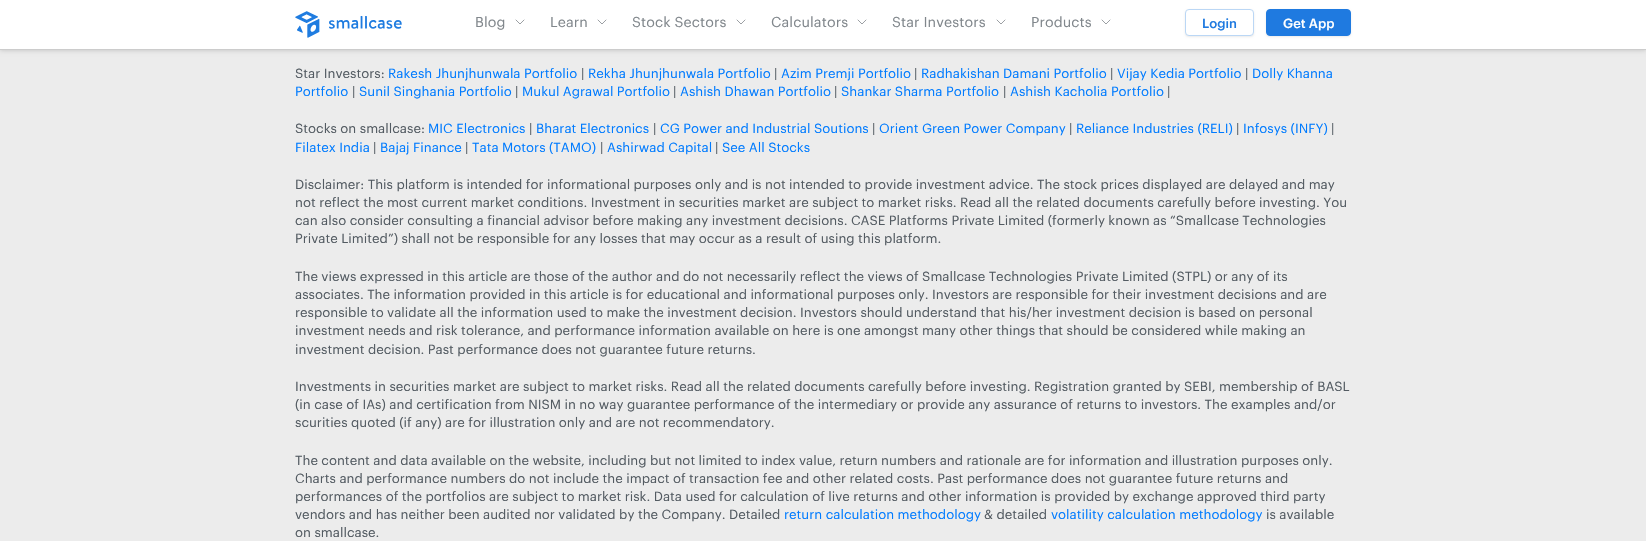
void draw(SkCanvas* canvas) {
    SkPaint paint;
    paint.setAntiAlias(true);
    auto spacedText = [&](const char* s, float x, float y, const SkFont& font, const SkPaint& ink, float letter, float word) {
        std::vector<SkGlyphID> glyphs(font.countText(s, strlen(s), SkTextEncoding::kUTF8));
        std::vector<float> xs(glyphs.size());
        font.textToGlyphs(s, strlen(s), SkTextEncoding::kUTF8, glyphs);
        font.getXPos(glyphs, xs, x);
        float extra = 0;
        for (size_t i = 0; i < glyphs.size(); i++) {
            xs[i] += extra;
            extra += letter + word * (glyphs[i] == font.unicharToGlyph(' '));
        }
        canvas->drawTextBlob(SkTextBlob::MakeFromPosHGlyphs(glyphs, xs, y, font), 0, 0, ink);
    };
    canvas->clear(0xFFECECEC);
    paint.setColor(0x33000000);
    paint.setMaskFilter(SkMaskFilter::MakeBlur(kNormal_SkBlurStyle, 2.5f));
    canvas->drawRect(SkRect::MakeXYWH(0, 0, 1646, 50), paint);
    paint.setMaskFilter(nullptr);
    paint.setColor(0xFFFFFFFF);
    canvas->drawRect(SkRect::MakeXYWH(0, 0, 1646, 49), paint);
    paint.setColor(0xFFCCCCCC);
    canvas->drawRect(SkRect::MakeXYWH(0, 49, 1646, 1), paint);
    canvas->drawImageRect(SkImages::DeferredFromEncodedData(SkData::MakeFromFileName("img1.png")), SkRect::MakeXYWH(295, 11, 107, 27), SkSamplingOptions());
    SkFont font1(fontMgr->matchFamilyStyle("Graphik", SkFontStyle::Normal()), 14);
    font1.setSubpixel(true);
    paint.setColor(0xFF81878C);
    spacedText("Blog", 475, 27, font1, paint, 0.1f, 0);
    paint.setStyle(SkPaint::kStroke_Style);
    paint.setStrokeWidth(0.8f);
    paint.setStrokeCap(SkPaint::kRound_Cap);
    paint.setStrokeJoin(SkPaint::kRound_Join);
    canvas->drawPath(SkPathBuilder().moveTo(524, 20).lineTo(520, 24).lineTo(516, 20).detach(), paint);
    paint.setStyle(SkPaint::kFill_Style);
    spacedText("Learn", 550, 27, font1, paint, 0.1f, 0);
    paint.setStyle(SkPaint::kStroke_Style);
    canvas->drawPath(SkPathBuilder().moveTo(606, 20).lineTo(602, 24).lineTo(598, 20).detach(), paint);
    paint.setStyle(SkPaint::kFill_Style);
    spacedText("Stock Sectors", 632, 27, font1, paint, 0.1f, 0);
    paint.setStyle(SkPaint::kStroke_Style);
    canvas->drawPath(SkPathBuilder().moveTo(745, 20).lineTo(741, 24).lineTo(737, 20).detach(), paint);
    paint.setStyle(SkPaint::kFill_Style);
    spacedText("Calculators", 771, 27, font1, paint, 0.1f, 0);
    paint.setStyle(SkPaint::kStroke_Style);
    canvas->drawPath(SkPathBuilder().moveTo(866, 20).lineTo(862, 24).lineTo(858, 20).detach(), paint);
    paint.setStyle(SkPaint::kFill_Style);
    spacedText("Star Investors", 892, 27, font1, paint, 0.1f, 0);
    paint.setStyle(SkPaint::kStroke_Style);
    canvas->drawPath(SkPathBuilder().moveTo(1005, 20).lineTo(1001, 24).lineTo(997, 20).detach(), paint);
    paint.setStyle(SkPaint::kFill_Style);
    spacedText("Products", 1031, 27, font1, paint, 0.1f, 0);
    paint.setStyle(SkPaint::kStroke_Style);
    canvas->drawPath(SkPathBuilder().moveTo(1110, 20).lineTo(1106, 24).lineTo(1102, 20).detach(), paint);
    paint.setStyle(SkPaint::kFill_Style);
    paint.setColor(0x14000000);
    paint.setMaskFilter(SkMaskFilter::MakeBlur(kNormal_SkBlurStyle, 1));
    canvas->drawRoundRect(SkRect::MakeXYWH(1185, 10, 69, 27), 4, 4, paint);
    paint.setMaskFilter(nullptr);
    paint.setColor(0xFFFFFFFF);
    canvas->drawRoundRect(SkRect::MakeXYWH(1185.5f, 9.5f, 68, 26), 3.5f, 3.5f, paint);
    paint.setStyle(SkPaint::kStroke_Style);
    paint.setStrokeWidth(1);
    paint.setStrokeCap(SkPaint::kButt_Cap);
    paint.setStrokeJoin(SkPaint::kMiter_Join);
    paint.setColor(0xFFBBD7F5);
    canvas->drawRoundRect(SkRect::MakeXYWH(1185.5f, 9.5f, 68, 26), 3.5f, 3.5f, paint);
    SkFont font2(fontMgr->matchFamilyStyle("Graphik", SkFontStyle(500, SkFontStyle::kNormal_Width, SkFontStyle::kUpright_Slant)), 13);
    font2.setSubpixel(true);
    paint.setStyle(SkPaint::kFill_Style);
    paint.setColor(0xFF1F7AE0);
    canvas->drawString("Login", 1202, 28, font2, paint);
    paint.setColor(0x14000000);
    paint.setMaskFilter(SkMaskFilter::MakeBlur(kNormal_SkBlurStyle, 1));
    canvas->drawRoundRect(SkRect::MakeXYWH(1266, 10, 85, 27), 4, 4, paint);
    paint.setMaskFilter(nullptr);
    paint.setColor(0xFF1F7AE0);
    canvas->drawRoundRect(SkRect::MakeXYWH(1266.5f, 9.5f, 84, 26), 3.5f, 3.5f, paint);
    paint.setStyle(SkPaint::kStroke_Style);
    canvas->drawRoundRect(SkRect::MakeXYWH(1266.5f, 9.5f, 84, 26), 3.5f, 3.5f, paint);
    paint.setStyle(SkPaint::kFill_Style);
    paint.setColor(0xFFFFFFFF);
    canvas->drawString("Get App", 1283, 28, font2, paint);
    SkFont font3(fontMgr->matchFamilyStyle("Graphik", SkFontStyle::Normal()), 13);
    font3.setSubpixel(true);
    paint.setColor(0xFF535B62);
    canvas->drawString("Star Investors:", 295, 78, font3, paint);
    paint.setColor(0xFF007BFF);
    canvas->drawString("Rakesh Jhunjhunwala Portfolio", 388, 78, font3, paint);
    paint.setColor(0xFF535B62);
    canvas->drawString("|", 581, 78, font3, paint);
    paint.setColor(0xFF007BFF);
    canvas->drawString("Rekha Jhunjhunwala Portfolio", 588, 78, font3, paint);
    paint.setColor(0xFF535B62);
    canvas->drawString("|", 774, 78, font3, paint);
    paint.setColor(0xFF007BFF);
    canvas->drawString("Azim Premji Portfolio", 781, 78, font3, paint);
    paint.setColor(0xFF535B62);
    canvas->drawString("|", 914, 78, font3, paint);
    paint.setColor(0xFF007BFF);
    canvas->drawString("Radhakishan Damani Portfolio", 921, 78, font3, paint);
    paint.setColor(0xFF535B62);
    canvas->drawString("|", 1110, 78, font3, paint);
    paint.setColor(0xFF007BFF);
    canvas->drawString("Vijay Kedia Portfolio", 1117, 78, font3, paint);
    paint.setColor(0xFF535B62);
    canvas->drawString("|", 1245, 78, font3, paint);
    paint.setColor(0xFF007BFF);
    canvas->drawString("Dolly Khanna", 1252, 78, font3, paint);
    canvas->drawString("Portfolio", 295, 96, font3, paint);
    paint.setColor(0xFF535B62);
    canvas->drawString("|", 352, 96, font3, paint);
    paint.setColor(0xFF007BFF);
    canvas->drawString("Sunil Singhania Portfolio", 359, 96, font3, paint);
    paint.setColor(0xFF535B62);
    canvas->drawString("|", 515, 96, font3, paint);
    paint.setColor(0xFF007BFF);
    canvas->drawString("Mukul Agrawal Portfolio", 522, 96, font3, paint);
    paint.setColor(0xFF535B62);
    canvas->drawString("|", 673, 96, font3, paint);
    paint.setColor(0xFF007BFF);
    canvas->drawString("Ashish Dhawan Portfolio", 680, 96, font3, paint);
    paint.setColor(0xFF535B62);
    canvas->drawString("|", 834, 96, font3, paint);
    paint.setColor(0xFF007BFF);
    canvas->drawString("Shankar Sharma Portfolio", 841, 96, font3, paint);
    paint.setColor(0xFF535B62);
    canvas->drawString("|", 1003, 96, font3, paint);
    paint.setColor(0xFF007BFF);
    canvas->drawString("Ashish Kacholia Portfolio", 1010, 96, font3, paint);
    paint.setColor(0xFF535B62);
    canvas->drawString("|", 1167, 96, font3, paint);
    canvas->drawString("Stocks on smallcase:", 295, 133, font3, paint);
    paint.setColor(0xFF007BFF);
    canvas->drawString("MIC Electronics", 428, 133, font3, paint);
    paint.setColor(0xFF535B62);
    canvas->drawString("|", 529, 133, font3, paint);
    paint.setColor(0xFF007BFF);
    canvas->drawString("Bharat Electronics", 536, 133, font3, paint);
    paint.setColor(0xFF535B62);
    canvas->drawString("|", 653, 133, font3, paint);
    paint.setColor(0xFF007BFF);
    canvas->drawString("CG Power and Industrial Soutions", 660, 133, font3, paint);
    paint.setColor(0xFF535B62);
    canvas->drawString("|", 872, 133, font3, paint);
    paint.setColor(0xFF007BFF);
    canvas->drawString("Orient Green Power Company", 879, 133, font3, paint);
    paint.setColor(0xFF535B62);
    canvas->drawString("|", 1069, 133, font3, paint);
    paint.setColor(0xFF007BFF);
    canvas->drawString("Reliance Industries (RELI)", 1076, 133, font3, paint);
    paint.setColor(0xFF535B62);
    canvas->drawString("|", 1236, 133, font3, paint);
    paint.setColor(0xFF007BFF);
    canvas->drawString("Infosys (INFY)", 1243, 133, font3, paint);
    paint.setColor(0xFF535B62);
    canvas->drawString("|", 1331, 133, font3, paint);
    paint.setColor(0xFF007BFF);
    canvas->drawString("Filatex India", 295, 152, font3, paint);
    paint.setColor(0xFF535B62);
    canvas->drawString("|", 373, 152, font3, paint);
    paint.setColor(0xFF007BFF);
    canvas->drawString("Bajaj Finance", 380, 152, font3, paint);
    paint.setColor(0xFF535B62);
    canvas->drawString("|", 465, 152, font3, paint);
    paint.setColor(0xFF007BFF);
    canvas->drawString("Tata Motors (TAMO)", 472, 152, font3, paint);
    paint.setColor(0xFF535B62);
    canvas->drawString("|", 600, 152, font3, paint);
    paint.setColor(0xFF007BFF);
    canvas->drawString("Ashirwad Capital", 607, 152, font3, paint);
    paint.setColor(0xFF535B62);
    canvas->drawString("|", 715, 152, font3, paint);
    paint.setColor(0xFF007BFF);
    canvas->drawString("See All Stocks", 722, 152, font3, paint);
    paint.setColor(0xFF535B62);
    canvas->drawString("Disclaimer: This platform is intended for informational purposes only and is not intended to provide investment advice. The stock prices displayed are delayed and may", 295, 189, font3, paint);
    canvas->drawString("not reflect the most current market conditions. Investment in securities market are subject to market risks. Read all the related documents carefully before investing. You", 295, 207, font3, paint);
    canvas->drawString("can also consider consulting a financial advisor before making any investment decisions. CASE Platforms Private Limited (formerly known as “Smallcase Technologies", 295, 225, font3, paint);
    canvas->drawString("Private Limited”) shall not be responsible for any losses that may occur as a result of using this platform.", 295, 243, font3, paint);
    canvas->drawString("The views expressed in this article are those of the author and do not necessarily reflect the views of Smallcase Technologies Private Limited (STPL) or any of its", 295, 281, font3, paint);
    canvas->drawString("associates. The information provided in this article is for educational and informational purposes only. Investors are responsible for their investment decisions and are", 295, 299, font3, paint);
    canvas->drawString("responsible to validate all the information used to make the investment decision. Investors should understand that his/her investment decision is based on personal", 295, 317, font3, paint);
    canvas->drawString("investment needs and risk tolerance, and performance information available on here is one amongst many other things that should be considered while making an", 295, 335, font3, paint);
    canvas->drawString("investment decision. Past performance does not guarantee future returns.", 295, 354, font3, paint);
    canvas->drawString("Investments in securities market are subject to market risks. Read all the related documents carefully before investing. Registration granted by SEBI, membership of BASL", 295, 391, font3, paint);
    canvas->drawString("(in case of IAs) and certification from NISM in no way guarantee performance of the intermediary or provide any assurance of returns to investors. The examples and/or", 295, 409, font3, paint);
    canvas->drawString("scurities quoted (if any) are for illustration only and are not recommendatory.", 295, 427, font3, paint);
    canvas->drawString("The content and data available on the website, including but not limited to index value, return numbers and rationale are for information and illustration purposes only.", 295, 465, font3, paint);
    canvas->drawString("Charts and performance numbers do not include the impact of transaction fee and other related costs. Past performance does not guarantee future returns and", 295, 483, font3, paint);
    canvas->drawString("performances of the portfolios are subject to market risk. Data used for calculation of live returns and other information is provided by exchange approved third party", 295, 501, font3, paint);
    canvas->drawString("vendors and has neither been audited nor validated by the Company. Detailed", 295, 519, font3, paint);
    paint.setColor(0xFF007BFF);
    canvas->drawString("return calculation methodology", 784, 519, font3, paint);
    paint.setColor(0xFF535B62);
    canvas->drawString("& detailed", 984, 519, font3, paint);
    paint.setColor(0xFF007BFF);
    canvas->drawString("volatility calculation methodology", 1051, 519, font3, paint);
    paint.setColor(0xFF535B62);
    canvas->drawString("is available", 1266, 519, font3, paint);
    canvas->drawString("on smallcase.", 295, 537, font3, paint);
}
